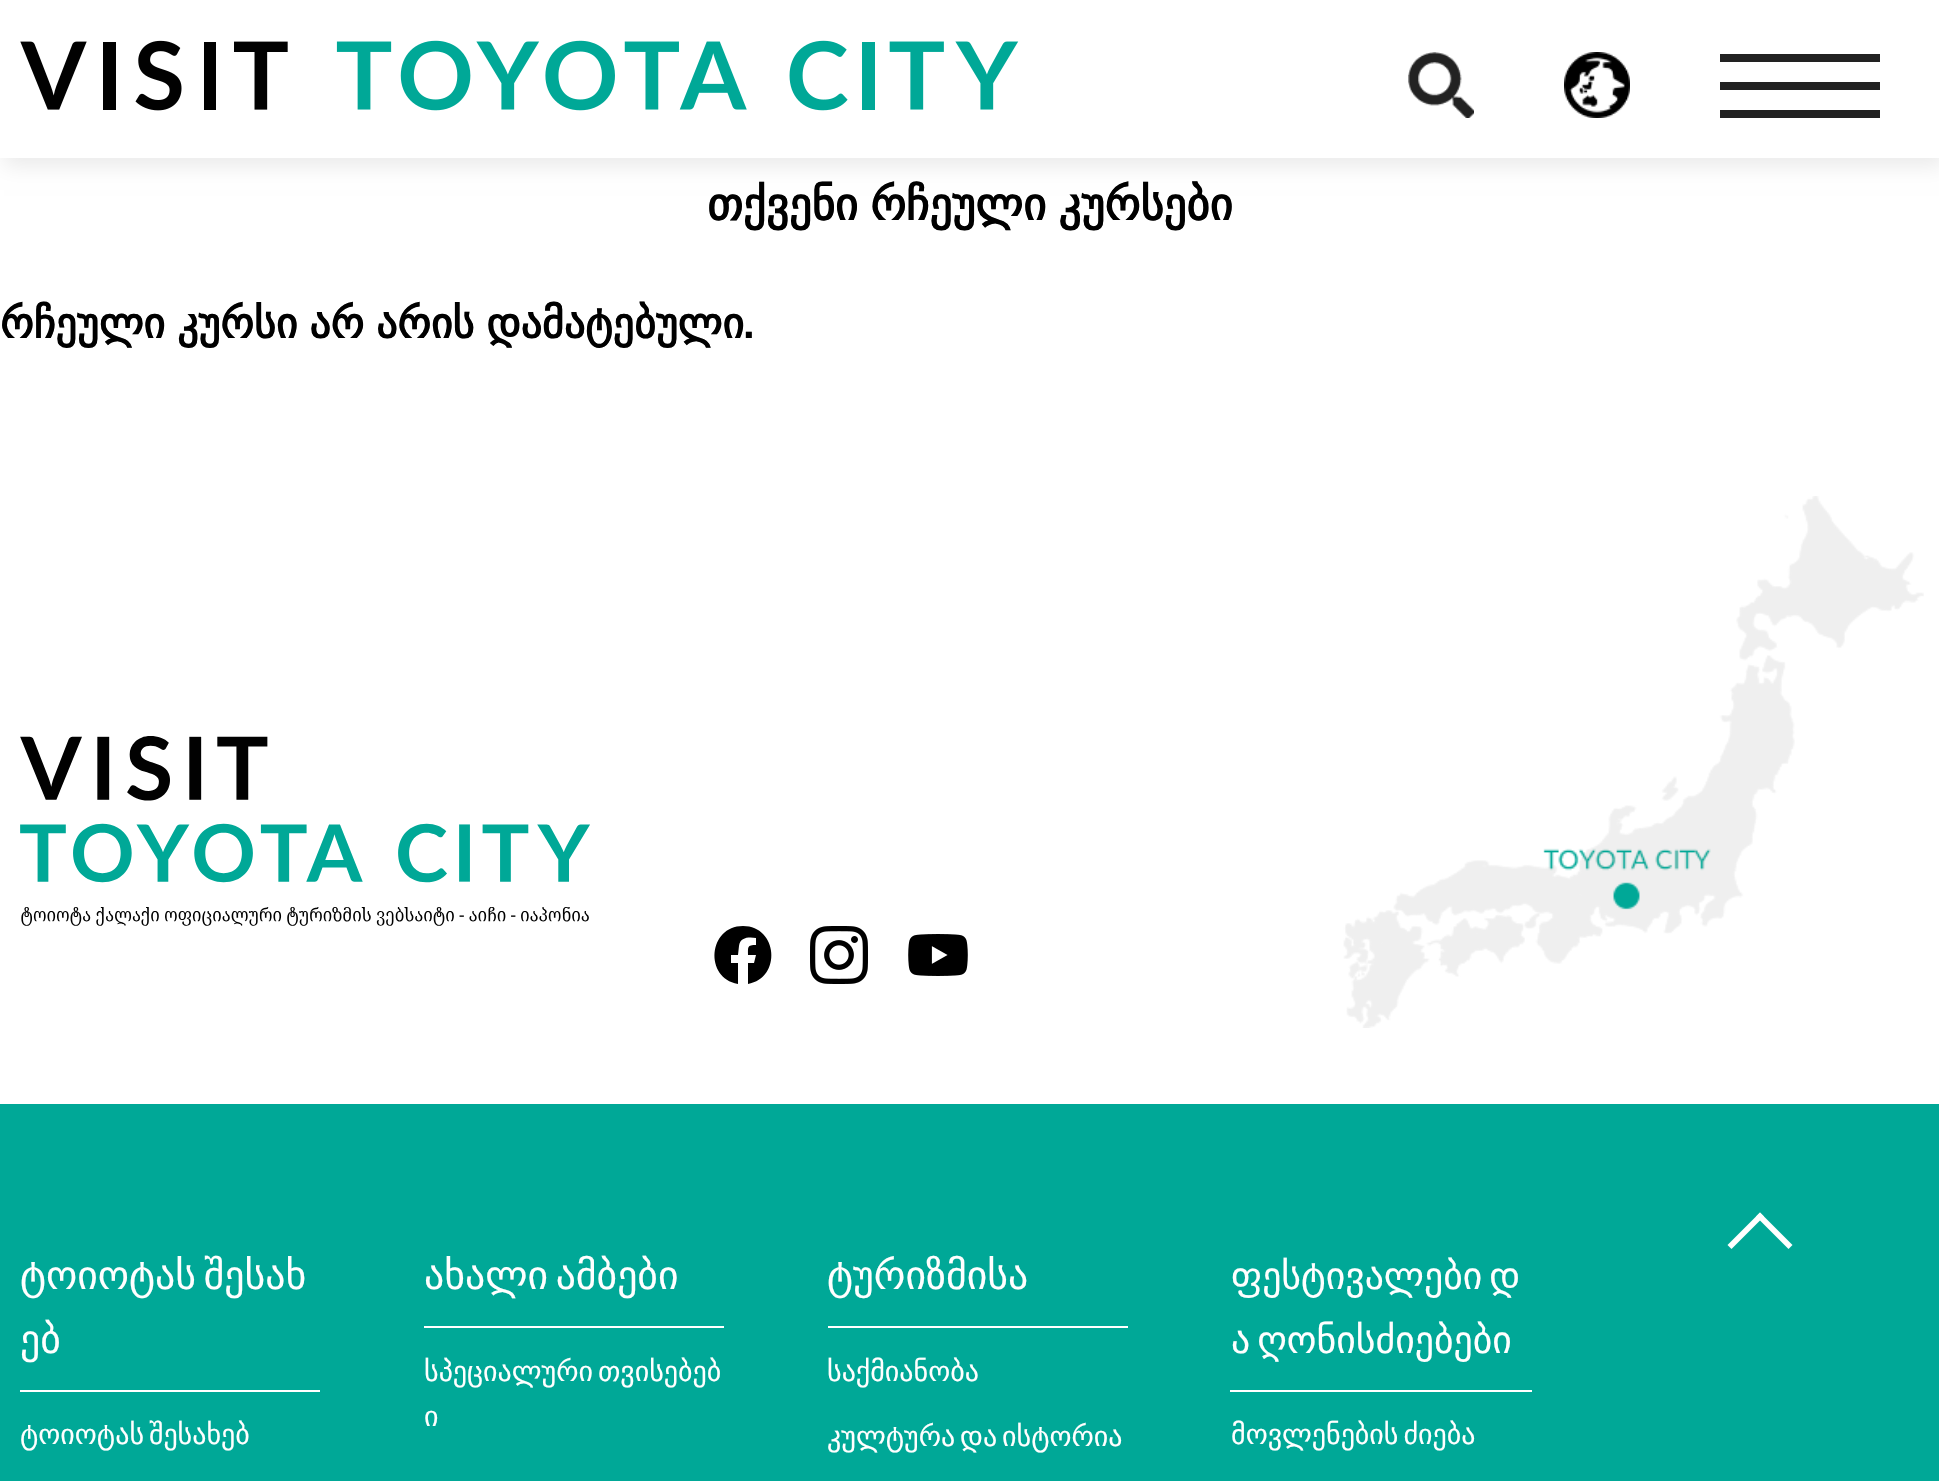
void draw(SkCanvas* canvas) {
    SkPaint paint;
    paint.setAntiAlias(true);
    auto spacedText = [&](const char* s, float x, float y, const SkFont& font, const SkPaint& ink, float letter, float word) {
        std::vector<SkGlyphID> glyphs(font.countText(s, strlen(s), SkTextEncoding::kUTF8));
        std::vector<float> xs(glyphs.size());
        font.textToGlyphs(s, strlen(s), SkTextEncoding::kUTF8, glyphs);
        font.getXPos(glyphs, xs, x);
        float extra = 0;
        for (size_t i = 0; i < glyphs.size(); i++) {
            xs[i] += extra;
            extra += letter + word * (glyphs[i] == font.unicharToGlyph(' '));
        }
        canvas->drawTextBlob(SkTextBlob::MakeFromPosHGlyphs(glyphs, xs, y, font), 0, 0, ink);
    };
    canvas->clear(0xFFFFFFFF);
    paint.setColor(0xFFEAEAEA);
    paint.setMaskFilter(SkMaskFilter::MakeBlur(kNormal_SkBlurStyle, 10));
    canvas->drawRect(SkRect::MakeXYWH(4, 8, 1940, 158), paint);
    paint.setMaskFilter(nullptr);
    paint.setColor(0xFFFFFFFF);
    canvas->drawRect(SkRect::MakeXYWH(0, 0, 1939, 158), paint);
    canvas->drawImageRect(SkImages::DeferredFromEncodedData(SkData::MakeFromFileName("img1.png")), SkRect::MakeXYWH(20, 40, 999, 71), SkSamplingOptions());
    canvas->drawImageRect(SkImages::DeferredFromEncodedData(SkData::MakeFromFileName("img2.png")), SkRect::MakeXYWH(1408, 52, 66, 66), SkSamplingOptions());
    canvas->drawImageRect(SkImages::DeferredFromEncodedData(SkData::MakeFromFileName("img3.png")), SkRect::MakeXYWH(1564, 52, 66, 66), SkSamplingOptions());
    paint.setColor(0xFF222222);
    canvas->drawRect(SkRect::MakeXYWH(1720, 54, 160, 8), paint);
    canvas->drawRect(SkRect::MakeXYWH(1720, 82, 160, 8), paint);
    canvas->drawRect(SkRect::MakeXYWH(1720, 110, 160, 8), paint);
    SkFont font1(fontMgr->matchFamilyStyle("DejaVu Sans", SkFontStyle::Bold()), 44.75f);
    font1.setSubpixel(true);
    paint.setColor(0xFF000000);
    spacedText("თქვენი რჩეული კურსები", 707, 220, font1, paint, 0, -2);
    SkFont font2(fontMgr->matchFamilyStyle("DejaVu Sans", SkFontStyle::Bold()), 42);
    font2.setSubpixel(true);
    spacedText("რჩეული კურსი არ არის დამატებული", 0, 338, font2, paint, 0, -1.5f);
    SkFont font3(fontMgr->matchFamilyStyle("Liberation Sans", SkFontStyle::Bold()), 42);
    font3.setSubpixel(true);
    canvas->drawString(".", 743, 338, font3, paint);
    canvas->drawImageRect(SkImages::DeferredFromEncodedData(SkData::MakeFromFileName("img4.png")), SkRect::MakeXYWH(20, 736, 570, 190), SkSamplingOptions());
    canvas->drawImageRect(SkImages::DeferredFromEncodedData(SkData::MakeFromFileName("img5.png")), SkRect::MakeXYWH(1343, 496, 581, 532), SkSamplingOptions());
    canvas->drawPath(SkPathBuilder().moveTo(743, 926).cubicTo(708, 926, 704, 978, 738, 984).lineTo(738, 963).lineTo(731, 963).lineTo(731, 955).lineTo(738, 955).lineTo(739, 946).cubicTo(740, 937, 749, 937, 756, 938).lineTo(756, 945).cubicTo(747, 945, 748, 947, 748, 955).lineTo(756, 955).lineTo(754, 963).lineTo(748, 963).lineTo(748, 984).cubicTo(782, 978, 778, 926, 743, 926).close().detach(), paint);
    canvas->drawImageRect(SkImages::DeferredFromEncodedData(SkData::MakeFromFileName("img6.png")), SkRect::MakeXYWH(810, 926, 58, 58), SkSamplingOptions());
    canvas->drawImageRect(SkImages::DeferredFromEncodedData(SkData::MakeFromFileName("img7.png")), SkRect::MakeXYWH(908, 934, 60, 42), SkSamplingOptions());
    paint.setColor(0xFF00A897);
    canvas->drawRect(SkRect::MakeXYWH(0, 1104, 1939, 377), paint);
    paint.setColor(0xFFFFFFFF);
    canvas->drawRect(SkRect::MakeXYWH(20, 1390, 300, 2), paint);
    SkFont font4(fontMgr->matchFamilyStyle("DejaVu Sans", SkFontStyle::Normal()), 39.75f);
    font4.setSubpixel(true);
    spacedText("ტოიოტას შესახ", 20, 1289, font4, paint, 0, -5);
    canvas->drawString("ებ", 20, 1353, font4, paint);
    SkFont font5(fontMgr->matchFamilyStyle("DejaVu Sans", SkFontStyle::Normal()), 28);
    font5.setSubpixel(true);
    spacedText("ტოიოტას შესახებ", 20, 1444, font5, paint, 0, -4);
    canvas->drawRect(SkRect::MakeXYWH(424, 1326, 300, 2), paint);
    spacedText("ახალი ამბები", 424, 1289, font4, paint, 0, -5);
    spacedText("სპეციალური თვისებებ", 424, 1381, font5, paint, 0, -4);
    canvas->drawString("ი", 424, 1426, font5, paint);
    canvas->drawRect(SkRect::MakeXYWH(828, 1326, 300, 2), paint);
    canvas->drawString("ტურიზმისა", 827, 1289, font4, paint);
    canvas->drawString("საქმიანობა", 827, 1381, font5, paint);
    spacedText("კულტურა და ისტორია", 827, 1446, font5, paint, 0, -4);
    canvas->drawRect(SkRect::MakeXYWH(1230, 1390, 302, 2), paint);
    SkFont font6(fontMgr->matchFamilyStyle("DejaVu Sans", SkFontStyle::Normal()), 37.75f);
    font6.setSubpixel(true);
    spacedText("ფესტივალები დ", 1231, 1289, font6, paint, 0, -5);
    spacedText("ა ღონისძიებები", 1231, 1353, font6, paint, 0, -5);
    spacedText("მოვლენების ძიება", 1231, 1444, font5, paint, 0, -4);
    canvas->drawPath(SkPathBuilder().moveTo(1727.5f, 1245).lineTo(1760, 1212.5f).lineTo(1764, 1216.5f).lineTo(1731.5f, 1249).close().detach(), paint);
    canvas->drawPath(SkPathBuilder().moveTo(1756, 1216.5f).lineTo(1760, 1212.5f).lineTo(1792.5f, 1245).lineTo(1788.5f, 1249).close().detach(), paint);
}
